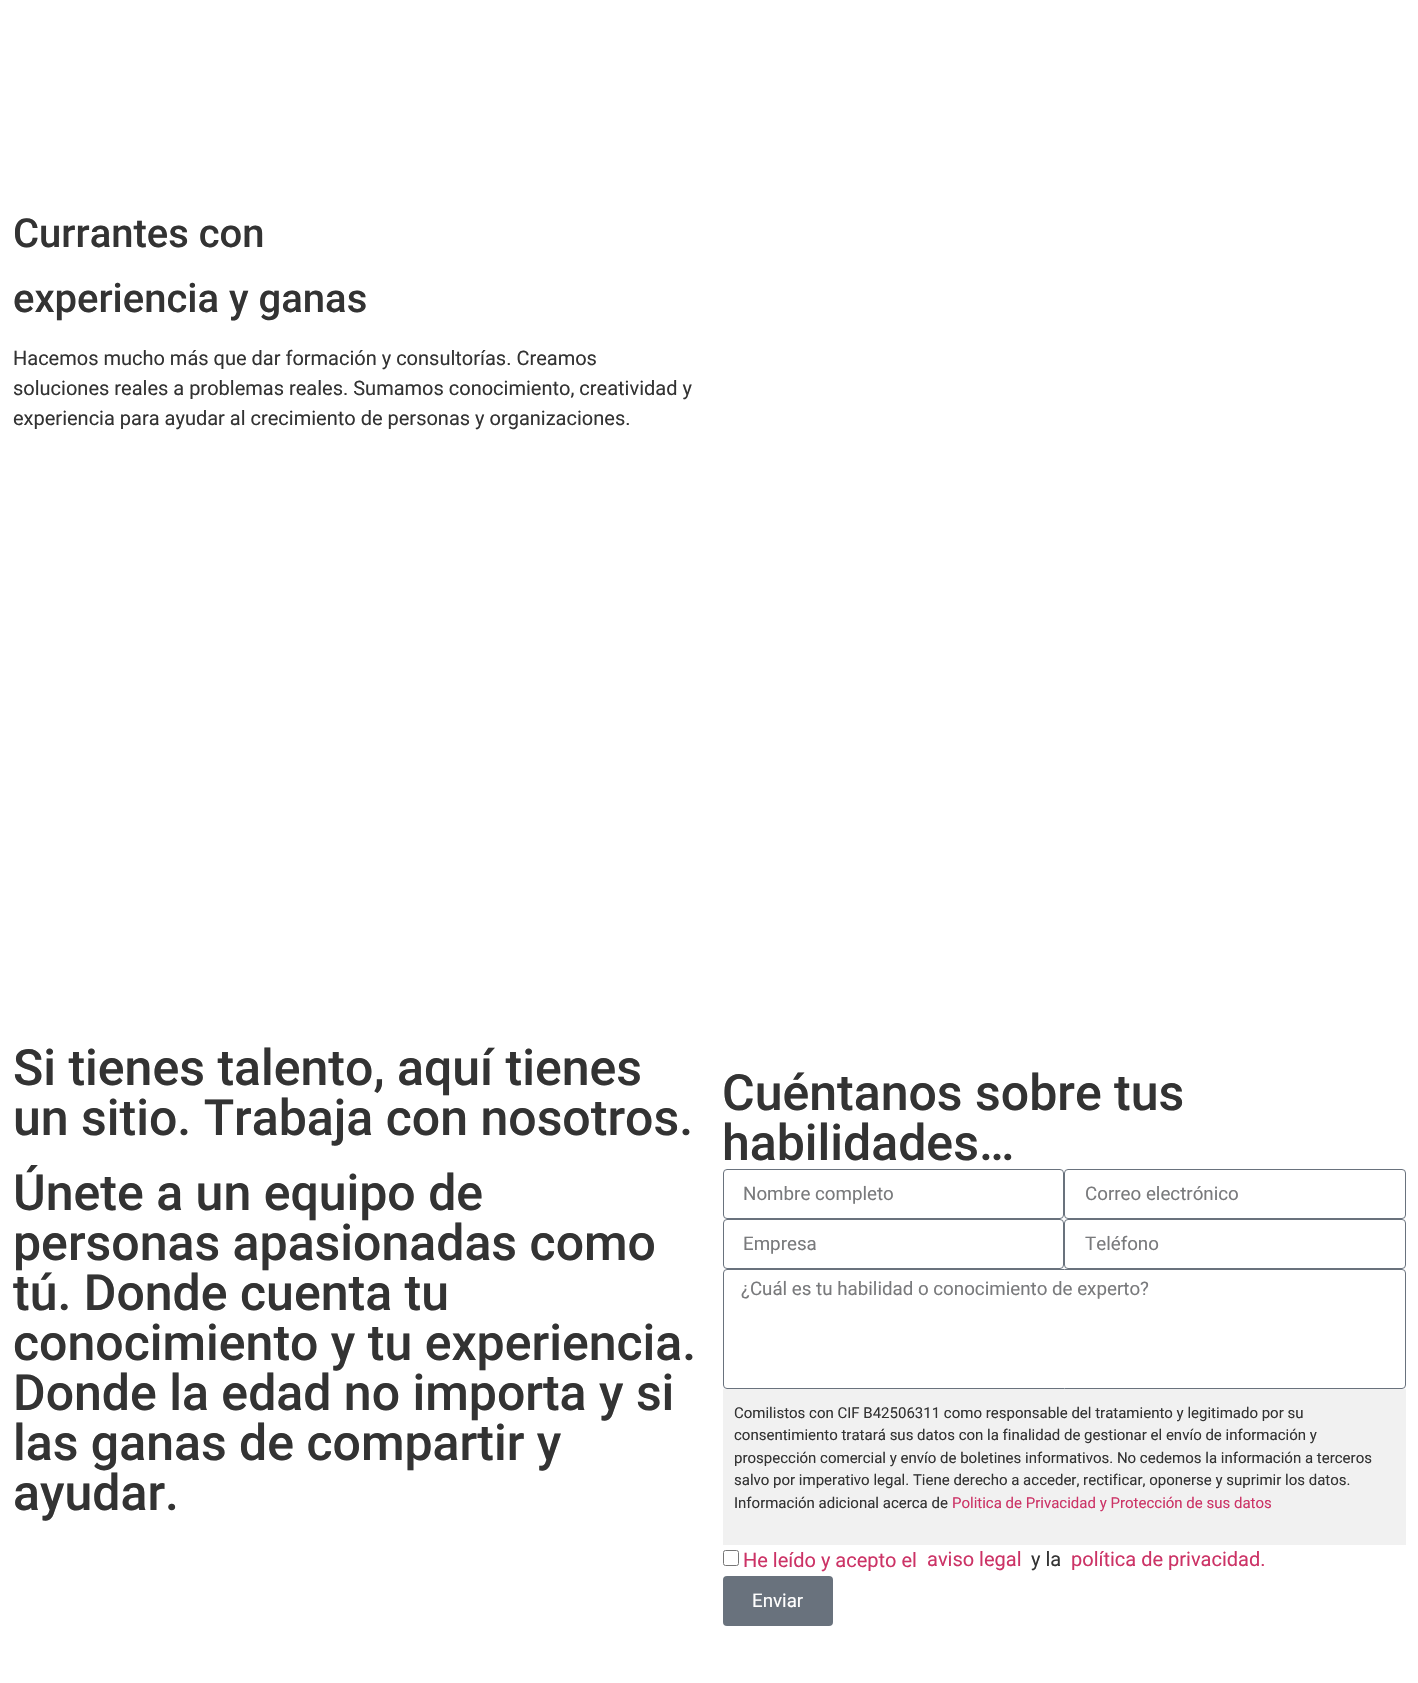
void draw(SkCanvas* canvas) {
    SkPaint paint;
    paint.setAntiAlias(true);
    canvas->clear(0xFFFFFFFF);
    SkFont font1(fontMgr->matchFamilyStyle("Roboto", SkFontStyle(500, SkFontStyle::kNormal_Width, SkFontStyle::kUpright_Slant)), 40);
    font1.setSubpixel(true);
    paint.setColor(0xFF333333);
    canvas->drawString("Currantes con", 13, 247, font1, paint);
    canvas->drawString("experiencia y ganas", 13, 312, font1, paint);
    SkFont font2(fontMgr->matchFamilyStyle("Roboto", SkFontStyle::Normal()), 20);
    font2.setSubpixel(true);
    canvas->drawString("Hacemos mucho más que dar formación y consultorías. Creamos", 13, 365, font2, paint);
    canvas->drawString("soluciones reales a problemas reales. Sumamos conocimiento, creatividad y", 13, 395, font2, paint);
    canvas->drawString("experiencia para ayudar al crecimiento de personas y organizaciones.", 13, 425, font2, paint);
    SkFont font3(fontMgr->matchFamilyStyle("Roboto", SkFontStyle(500, SkFontStyle::kNormal_Width, SkFontStyle::kUpright_Slant)), 50);
    font3.setSubpixel(true);
    canvas->drawString("Si tienes talento, aquí tienes", 13, 1085, font3, paint);
    canvas->drawString("un sitio. Trabaja con nosotros.", 13, 1135, font3, paint);
    canvas->drawString("Únete a un equipo de", 13, 1210, font3, paint);
    canvas->drawString("personas apasionadas como", 13, 1260, font3, paint);
    canvas->drawString("tú. Donde cuenta tu", 13, 1310, font3, paint);
    canvas->drawString("conocimiento y tu experiencia.", 13, 1360, font3, paint);
    canvas->drawString("Donde la edad no importa y si", 13, 1410, font3, paint);
    canvas->drawString("las ganas de compartir y", 13, 1460, font3, paint);
    canvas->drawString("ayudar.", 13, 1510, font3, paint);
    canvas->drawString("Cuéntanos sobre tus", 722, 1110, font3, paint);
    canvas->drawString("habilidades…", 722, 1160, font3, paint);
    paint.setStyle(SkPaint::kStroke_Style);
    paint.setStrokeWidth(1);
    paint.setColor(0xFF69727D);
    canvas->drawRoundRect(SkRect::MakeXYWH(723.5f, 1169.5f, 340, 49), 3.5f, 3.5f, paint);
    SkFont font4(fontMgr->matchFamilyStyle("Roboto", SkFontStyle::Normal()), 18.75f);
    font4.setSubpixel(true);
    paint.setStyle(SkPaint::kFill_Style);
    paint.setColor(0xFF797A7C);
    canvas->drawString("Nombre completo", 743, 1200, font4, paint);
    paint.setStyle(SkPaint::kStroke_Style);
    paint.setColor(0xFF69727D);
    canvas->drawRoundRect(SkRect::MakeXYWH(1064.5f, 1169.5f, 341, 49), 3.5f, 3.5f, paint);
    paint.setStyle(SkPaint::kFill_Style);
    paint.setColor(0xFF797A7C);
    canvas->drawString("Correo electrónico", 1085, 1200, font4, paint);
    paint.setStyle(SkPaint::kStroke_Style);
    paint.setColor(0xFF69727D);
    canvas->drawRoundRect(SkRect::MakeXYWH(723.5f, 1219.5f, 340, 49), 3.5f, 3.5f, paint);
    paint.setStyle(SkPaint::kFill_Style);
    paint.setColor(0xFF797A7C);
    canvas->drawString("Empresa", 743, 1250, font4, paint);
    paint.setStyle(SkPaint::kStroke_Style);
    paint.setColor(0xFF69727D);
    canvas->drawRoundRect(SkRect::MakeXYWH(1064.5f, 1219.5f, 341, 49), 3.5f, 3.5f, paint);
    paint.setStyle(SkPaint::kFill_Style);
    paint.setColor(0xFF797A7C);
    canvas->drawString("Teléfono", 1085, 1250, font4, paint);
    paint.setStyle(SkPaint::kStroke_Style);
    paint.setColor(0xFF69727D);
    canvas->drawRoundRect(SkRect::MakeXYWH(723.5f, 1269.5f, 682, 119), 3.5f, 3.5f, paint);
    paint.setStyle(SkPaint::kFill_Style);
    paint.setColor(0xFF797A7C);
    canvas->drawString("¿Cuál es tu habilidad o conocimiento de experto?", 741, 1295, font4, paint);
    paint.setColor(0xFFF1F1F1);
    canvas->drawRect(SkRect::MakeXYWH(723, 1389, 683, 156), paint);
    SkFont font5(fontMgr->matchFamilyStyle("Roboto", SkFontStyle::Normal()), 15);
    font5.setSubpixel(true);
    paint.setColor(0xFF333333);
    canvas->drawString("Comilistos con CIF B42506311 como responsable del tratamiento y legitimado por su", 734, 1418, font5, paint);
    canvas->drawString("consentimiento tratará sus datos con la finalidad de gestionar el envío de información y", 734, 1440, font5, paint);
    canvas->drawString("prospección comercial y envío de boletines informativos. No cedemos la información a terceros", 734, 1463, font5, paint);
    canvas->drawString("salvo por imperativo legal. Tiene derecho a acceder, rectificar, oponerse y suprimir los datos.", 734, 1485, font5, paint);
    canvas->drawString("Información adicional acerca de", 734, 1508, font5, paint);
    paint.setColor(0xFFCC3366);
    canvas->drawString("Politica de Privacidad y Protección de sus datos", 952, 1508, font5, paint);
    paint.setStyle(SkPaint::kStroke_Style);
    paint.setColor(0xFF767676);
    canvas->drawRoundRect(SkRect::MakeXYWH(723.5f, 1550.5f, 15, 15), 2, 2, paint);
    paint.setStyle(SkPaint::kFill_Style);
    paint.setColor(0xFFCC3366);
    canvas->drawString("He leído y acepto el", 743, 1567, font2, paint);
    canvas->drawString("aviso legal", 927, 1566, font2, paint);
    paint.setColor(0xFF333333);
    canvas->drawString("y la", 1031, 1566, font2, paint);
    paint.setColor(0xFFCC3366);
    canvas->drawString("política de privacidad.", 1071, 1566, font2, paint);
    paint.setColor(0xFF69727D);
    canvas->drawRoundRect(SkRect::MakeXYWH(723, 1576, 110, 50), 4, 4, paint);
    paint.setColor(0xFFFFFFFF);
    canvas->drawString("Enviar", 752, 1607, font4, paint);
}
